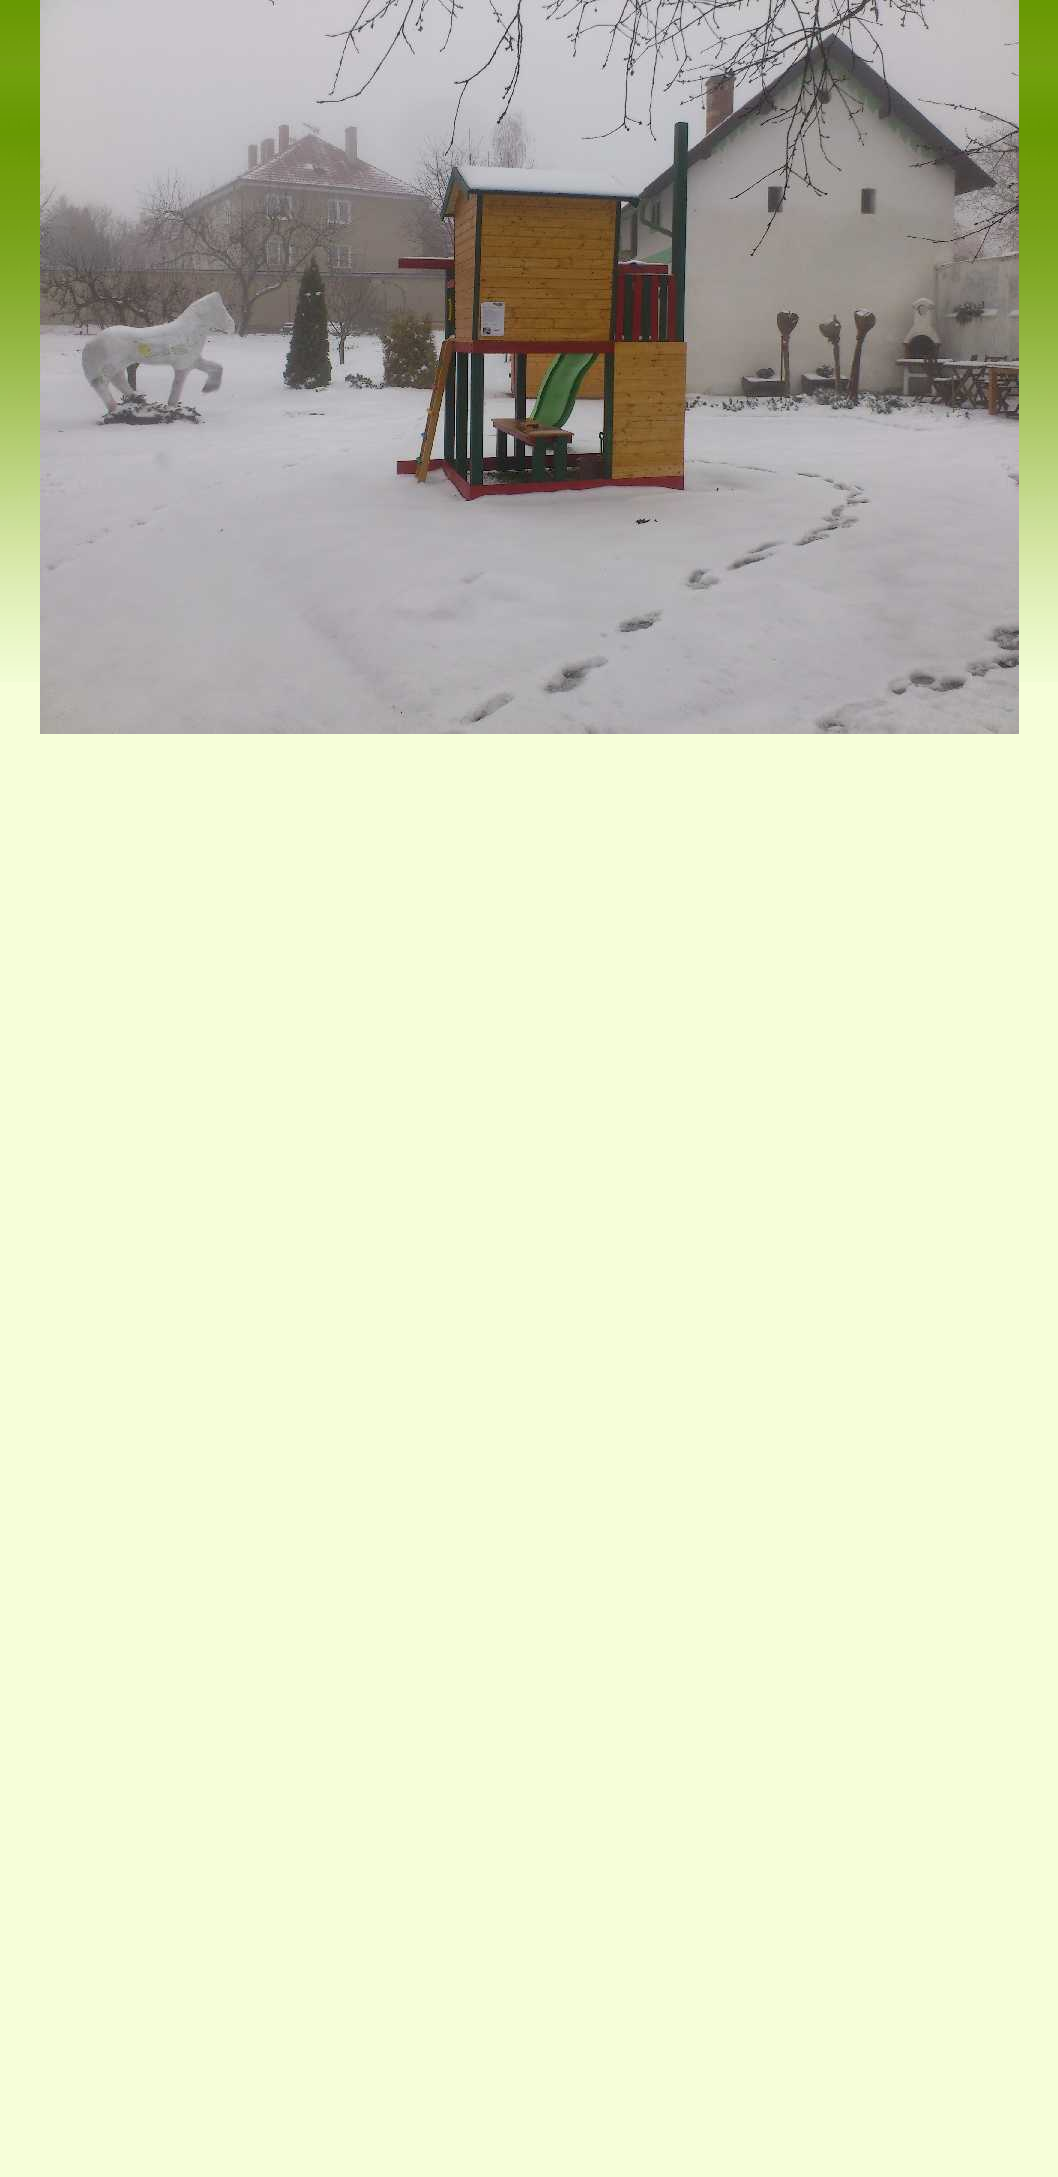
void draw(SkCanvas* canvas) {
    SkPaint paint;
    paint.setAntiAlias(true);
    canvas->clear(0xFFF6FED9);
    canvas->drawImageRect(SkImages::DeferredFromEncodedData(SkData::MakeFromFileName("img1.png")), SkRect::MakeXYWH(0, 0, 1058, 682), SkSamplingOptions());
    canvas->drawImageRect(SkImages::DeferredFromEncodedData(SkData::MakeFromFileName("img2.png")), SkRect::MakeXYWH(40, 0, 979, 734), SkSamplingOptions());
}
